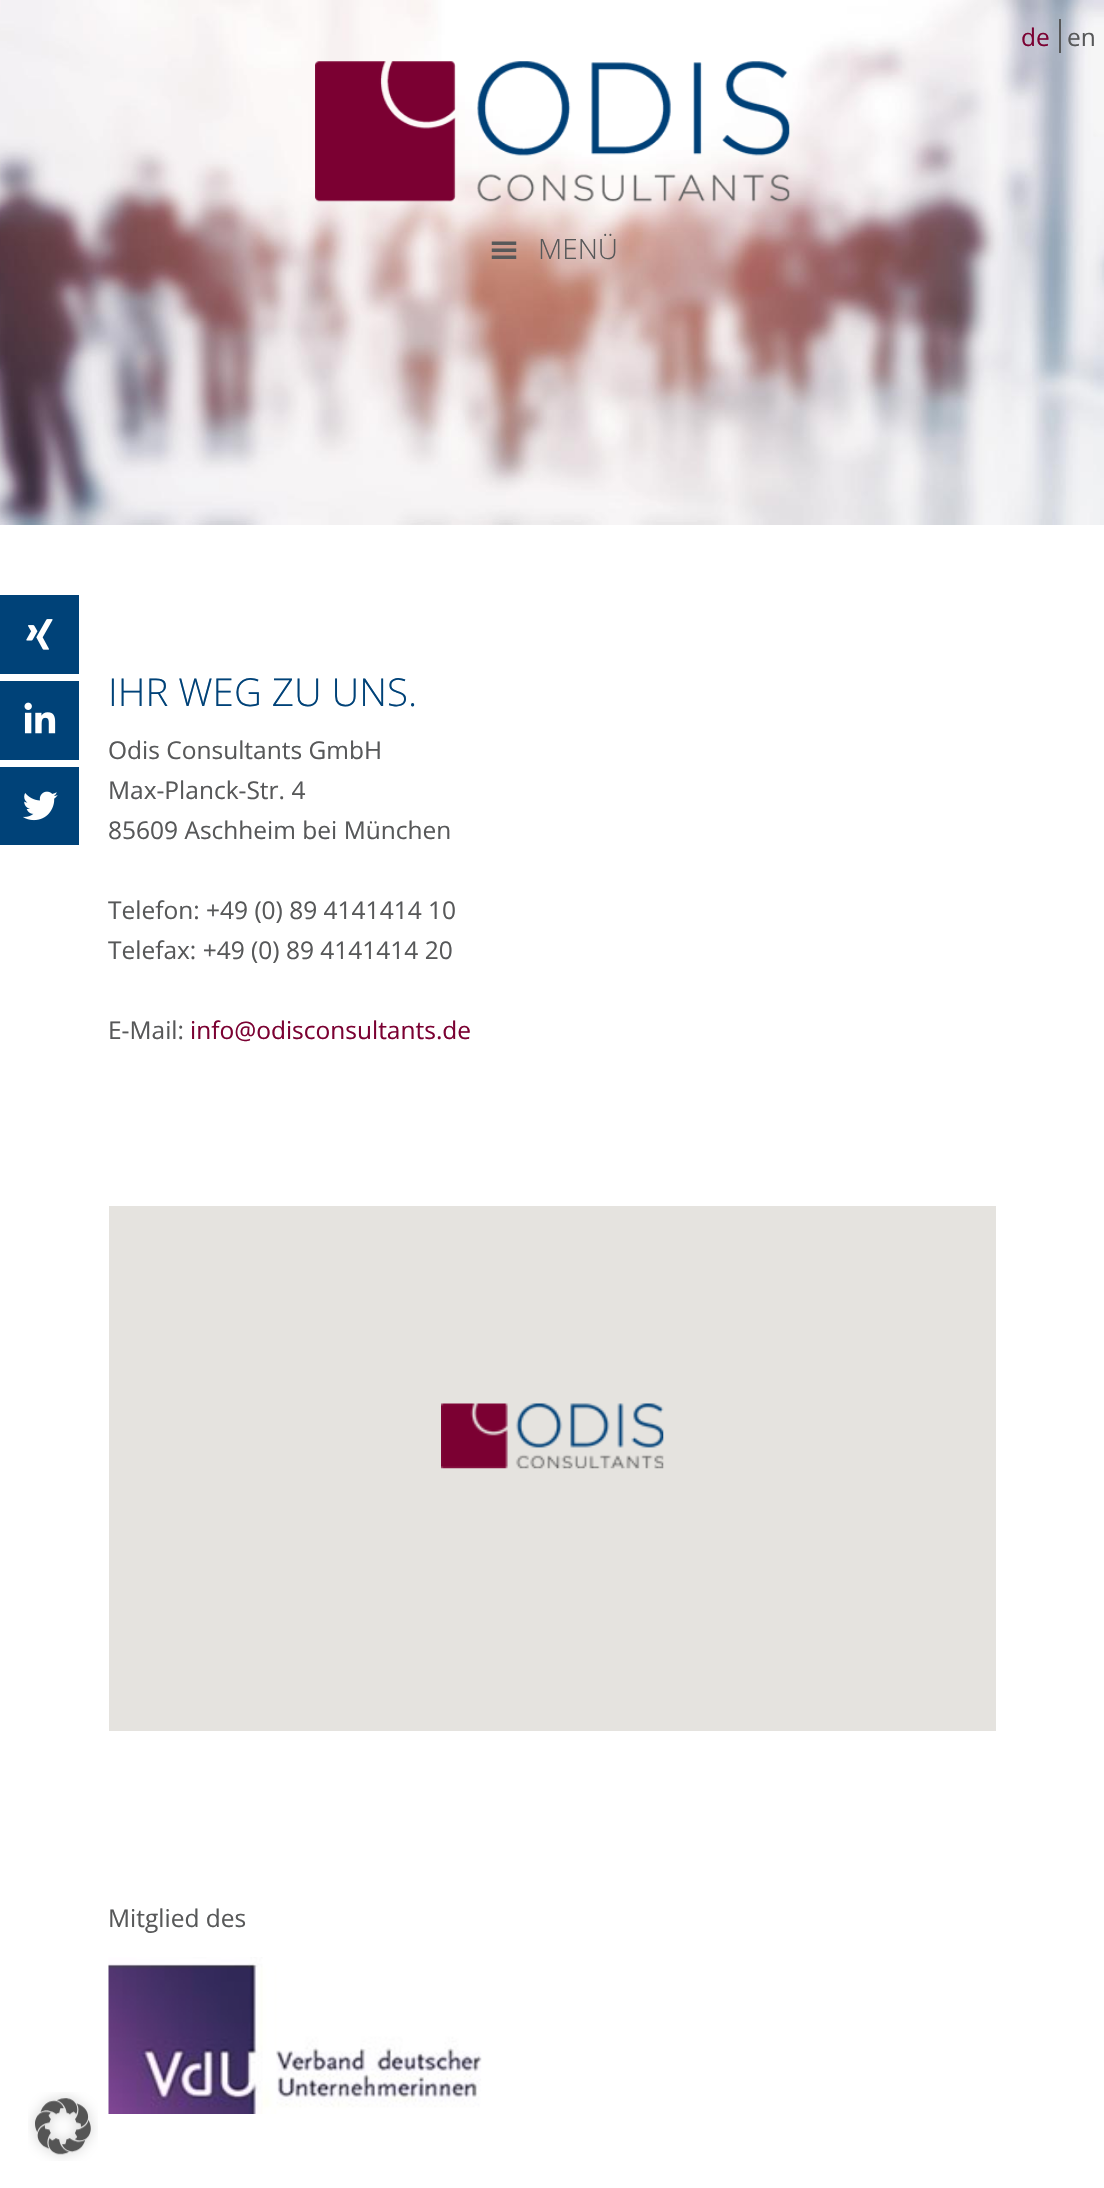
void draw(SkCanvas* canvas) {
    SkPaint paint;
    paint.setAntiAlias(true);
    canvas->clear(0xFFFFFFFF);
    canvas->drawImageRect(SkImages::DeferredFromEncodedData(SkData::MakeFromFileName("img1.png")), SkRect::MakeXYWH(0, 0, 1104, 525), SkSamplingOptions());
    SkFont font1(fontMgr->matchFamilyStyle("Open Sans", SkFontStyle::Normal()), 24.5f);
    font1.setSubpixel(true);
    paint.setColor(0xFF7B0132);
    canvas->drawString("de", 1021, 46, font1, paint);
    paint.setColor(0xFF575859);
    canvas->drawRect(SkRect::MakeXYWH(1059, 19, 2, 34), paint);
    canvas->drawString("en", 1067, 46, font1, paint);
    canvas->drawImageRect(SkImages::DeferredFromEncodedData(SkData::MakeFromFileName("img2.png")), SkRect::MakeXYWH(315, 61, 475, 141), SkSamplingOptions());
    canvas->drawImageRect(SkImages::DeferredFromEncodedData(SkData::MakeFromFileName("img3.png")), SkRect::MakeXYWH(491, 241, 26, 18), SkSamplingOptions());
    SkFont font2(fontMgr->matchFamilyStyle("Open Sans", SkFontStyle(300, SkFontStyle::kNormal_Width, SkFontStyle::kUpright_Slant)), 28);
    font2.setSubpixel(true);
    canvas->drawString("MENÜ", 538, 259, font2, paint);
    paint.setColor(0xFF004278);
    canvas->drawRect(SkRect::MakeXYWH(0, 595, 79, 79), paint);
    canvas->drawImageRect(SkImages::DeferredFromEncodedData(SkData::MakeFromFileName("img4.png")), SkRect::MakeXYWH(26, 619, 27, 31), SkSamplingOptions());
    canvas->drawRect(SkRect::MakeXYWH(0, 681, 79, 79), paint);
    canvas->drawImageRect(SkImages::DeferredFromEncodedData(SkData::MakeFromFileName("img5.png")), SkRect::MakeXYWH(24, 702, 32, 32), SkSamplingOptions());
    canvas->drawRect(SkRect::MakeXYWH(0, 767, 79, 78), paint);
    canvas->drawImageRect(SkImages::DeferredFromEncodedData(SkData::MakeFromFileName("img6.png")), SkRect::MakeXYWH(23, 791, 35, 30), SkSamplingOptions());
    SkFont font3(fontMgr->matchFamilyStyle("Open Sans", SkFontStyle(300, SkFontStyle::kNormal_Width, SkFontStyle::kUpright_Slant)), 38.5f);
    font3.setSubpixel(true);
    canvas->drawString("IHR WEG ZU UNS.", 108, 706, font3, paint);
    paint.setColor(0xFF575859);
    canvas->drawString("Odis Consultants GmbH", 108, 759, font1, paint);
    canvas->drawString("Max-Planck-Str. 4", 108, 799, font1, paint);
    canvas->drawString("85609 Aschheim bei München", 108, 839, font1, paint);
    canvas->drawString("Telefon: +49 (0) 89 4141414 10", 108, 919, font1, paint);
    canvas->drawString("Telefax: +49 (0) 89 4141414 20", 108, 959, font1, paint);
    canvas->drawString("E-Mail:", 108, 1039, font1, paint);
    paint.setColor(0xFF7B0132);
    canvas->drawString("info@odisconsultants.de", 190, 1039, font1, paint);
    paint.setColor(0xFFE5E3DF);
    canvas->drawRect(SkRect::MakeXYWH(109, 1206, 887, 525), paint);
    canvas->drawImageRect(SkImages::DeferredFromEncodedData(SkData::MakeFromFileName("img7.png")), SkRect::MakeXYWH(441, 1403, 223, 66), SkSamplingOptions());
    paint.setColor(0xFF575859);
    canvas->drawString("Mitglied des", 108, 1927, font1, paint);
    canvas->drawImageRect(SkImages::DeferredFromEncodedData(SkData::MakeFromFileName("img8.png")), SkRect::MakeXYWH(108, 1957, 374, 157), SkSamplingOptions());
    canvas->drawImageRect(SkImages::DeferredFromEncodedData(SkData::MakeFromFileName("img9.png")), SkRect::MakeXYWH(28, 2092, 70, 69), SkSamplingOptions());
}
